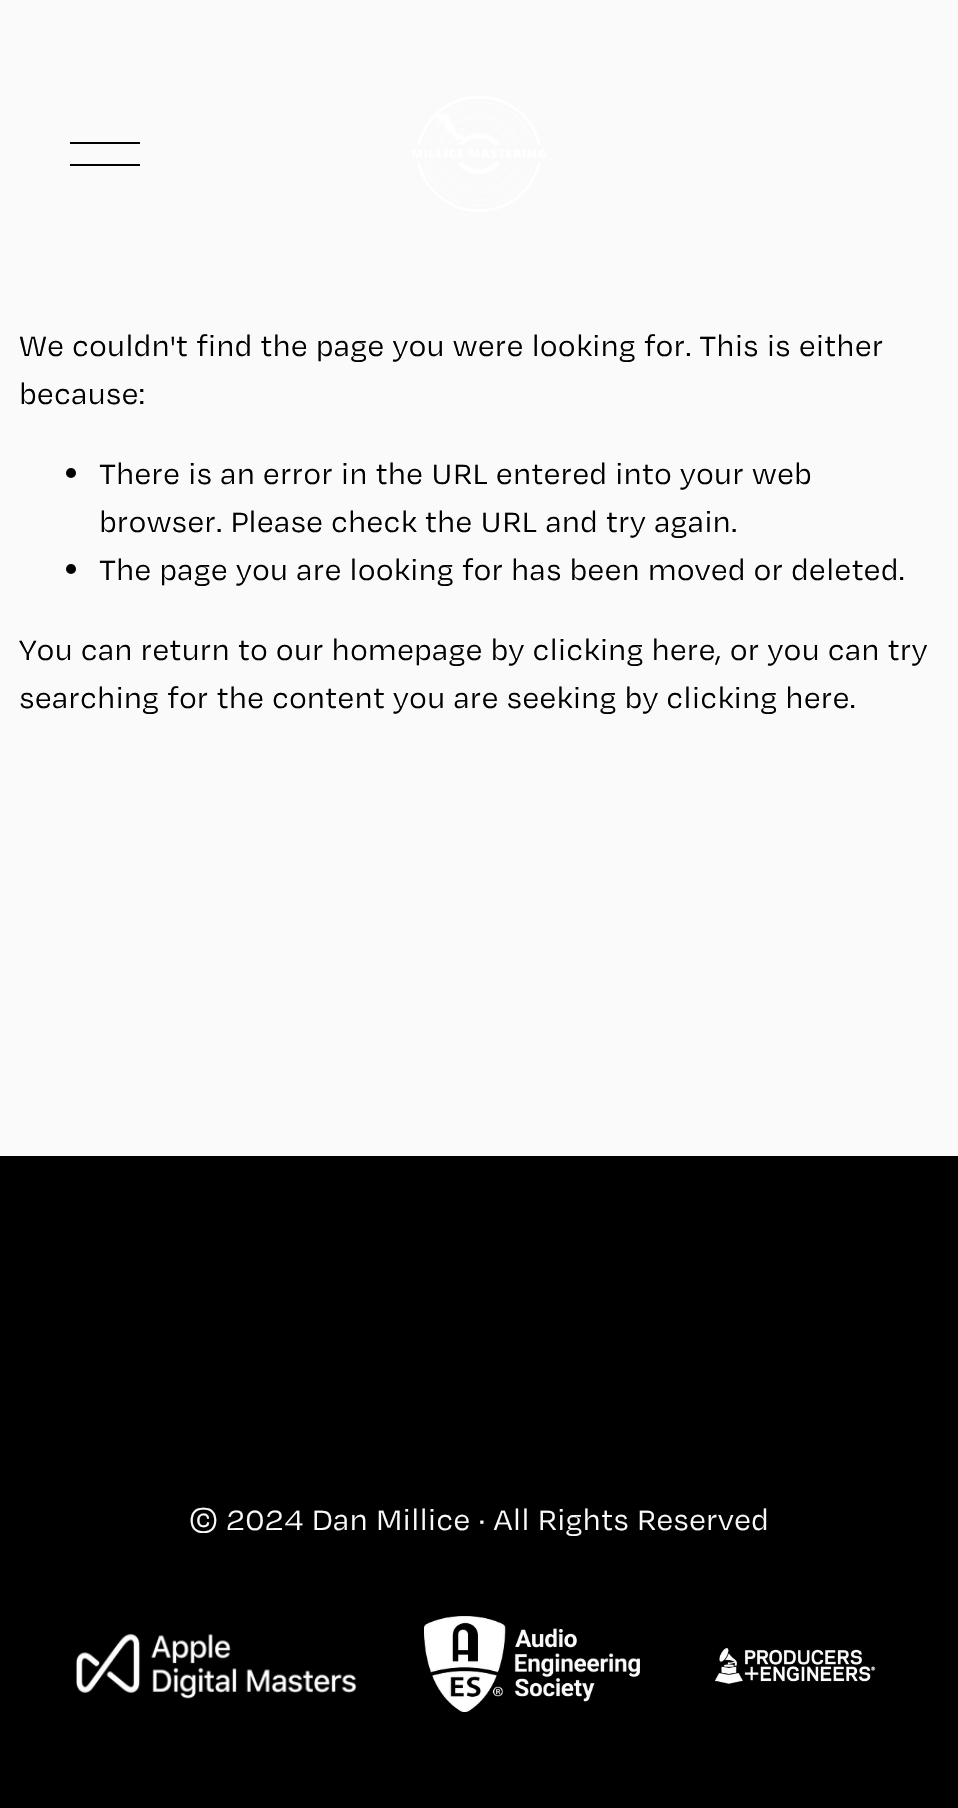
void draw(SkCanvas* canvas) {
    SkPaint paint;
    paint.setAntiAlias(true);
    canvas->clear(0xFFFAFAFA);
    paint.setColor(0xFF000000);
    canvas->drawRect(SkRect::MakeXYWH(70, 142, 70, 2), paint);
    canvas->drawRect(SkRect::MakeXYWH(70, 164, 70, 2), paint);
    canvas->drawImageRect(SkImages::DeferredFromEncodedData(SkData::MakeFromFileName("img1.png")), SkRect::MakeXYWH(412, 96, 134, 116), SkSamplingOptions());
    SkFont font1(fontMgr->matchFamilyStyle("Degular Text", SkFontStyle::Normal()), 32);
    font1.setSubpixel(true);
    canvas->drawString("We couldn't find the page you were looking for. This is either", 19, 356, font1, paint);
    canvas->drawString("because:", 19, 404, font1, paint);
    canvas->drawCircle(71, 473, 5, paint);
    canvas->drawString("There is an error in the URL entered into your web", 99, 484, font1, paint);
    canvas->drawString("browser. Please check the URL and try again.", 99, 532, font1, paint);
    canvas->drawCircle(71, 569, 5, paint);
    canvas->drawString("The page you are looking for has been moved or deleted.", 99, 580, font1, paint);
    canvas->drawString("You can return to our homepage by clicking here, or you can try", 19, 660, font1, paint);
    canvas->drawString("searching for the content you are seeking by clicking here.", 19, 708, font1, paint);
    canvas->drawRect(SkRect::MakeXYWH(0, 1156, 958, 652), paint);
    paint.setColor(0xFFFAFAFA);
    canvas->drawString("© 2024 Dan Millice · All Rights Reserved", 189, 1530, font1, paint);
    canvas->drawImageRect(SkImages::DeferredFromEncodedData(SkData::MakeFromFileName("img2.png")), SkRect::MakeXYWH(75, 1634, 282, 65), SkSamplingOptions());
    canvas->drawImageRect(SkImages::DeferredFromEncodedData(SkData::MakeFromFileName("img3.png")), SkRect::MakeXYWH(424, 1616, 216, 96), SkSamplingOptions());
    canvas->drawImageRect(SkImages::DeferredFromEncodedData(SkData::MakeFromFileName("img4.png")), SkRect::MakeXYWH(714, 1648, 162, 36), SkSamplingOptions());
}
